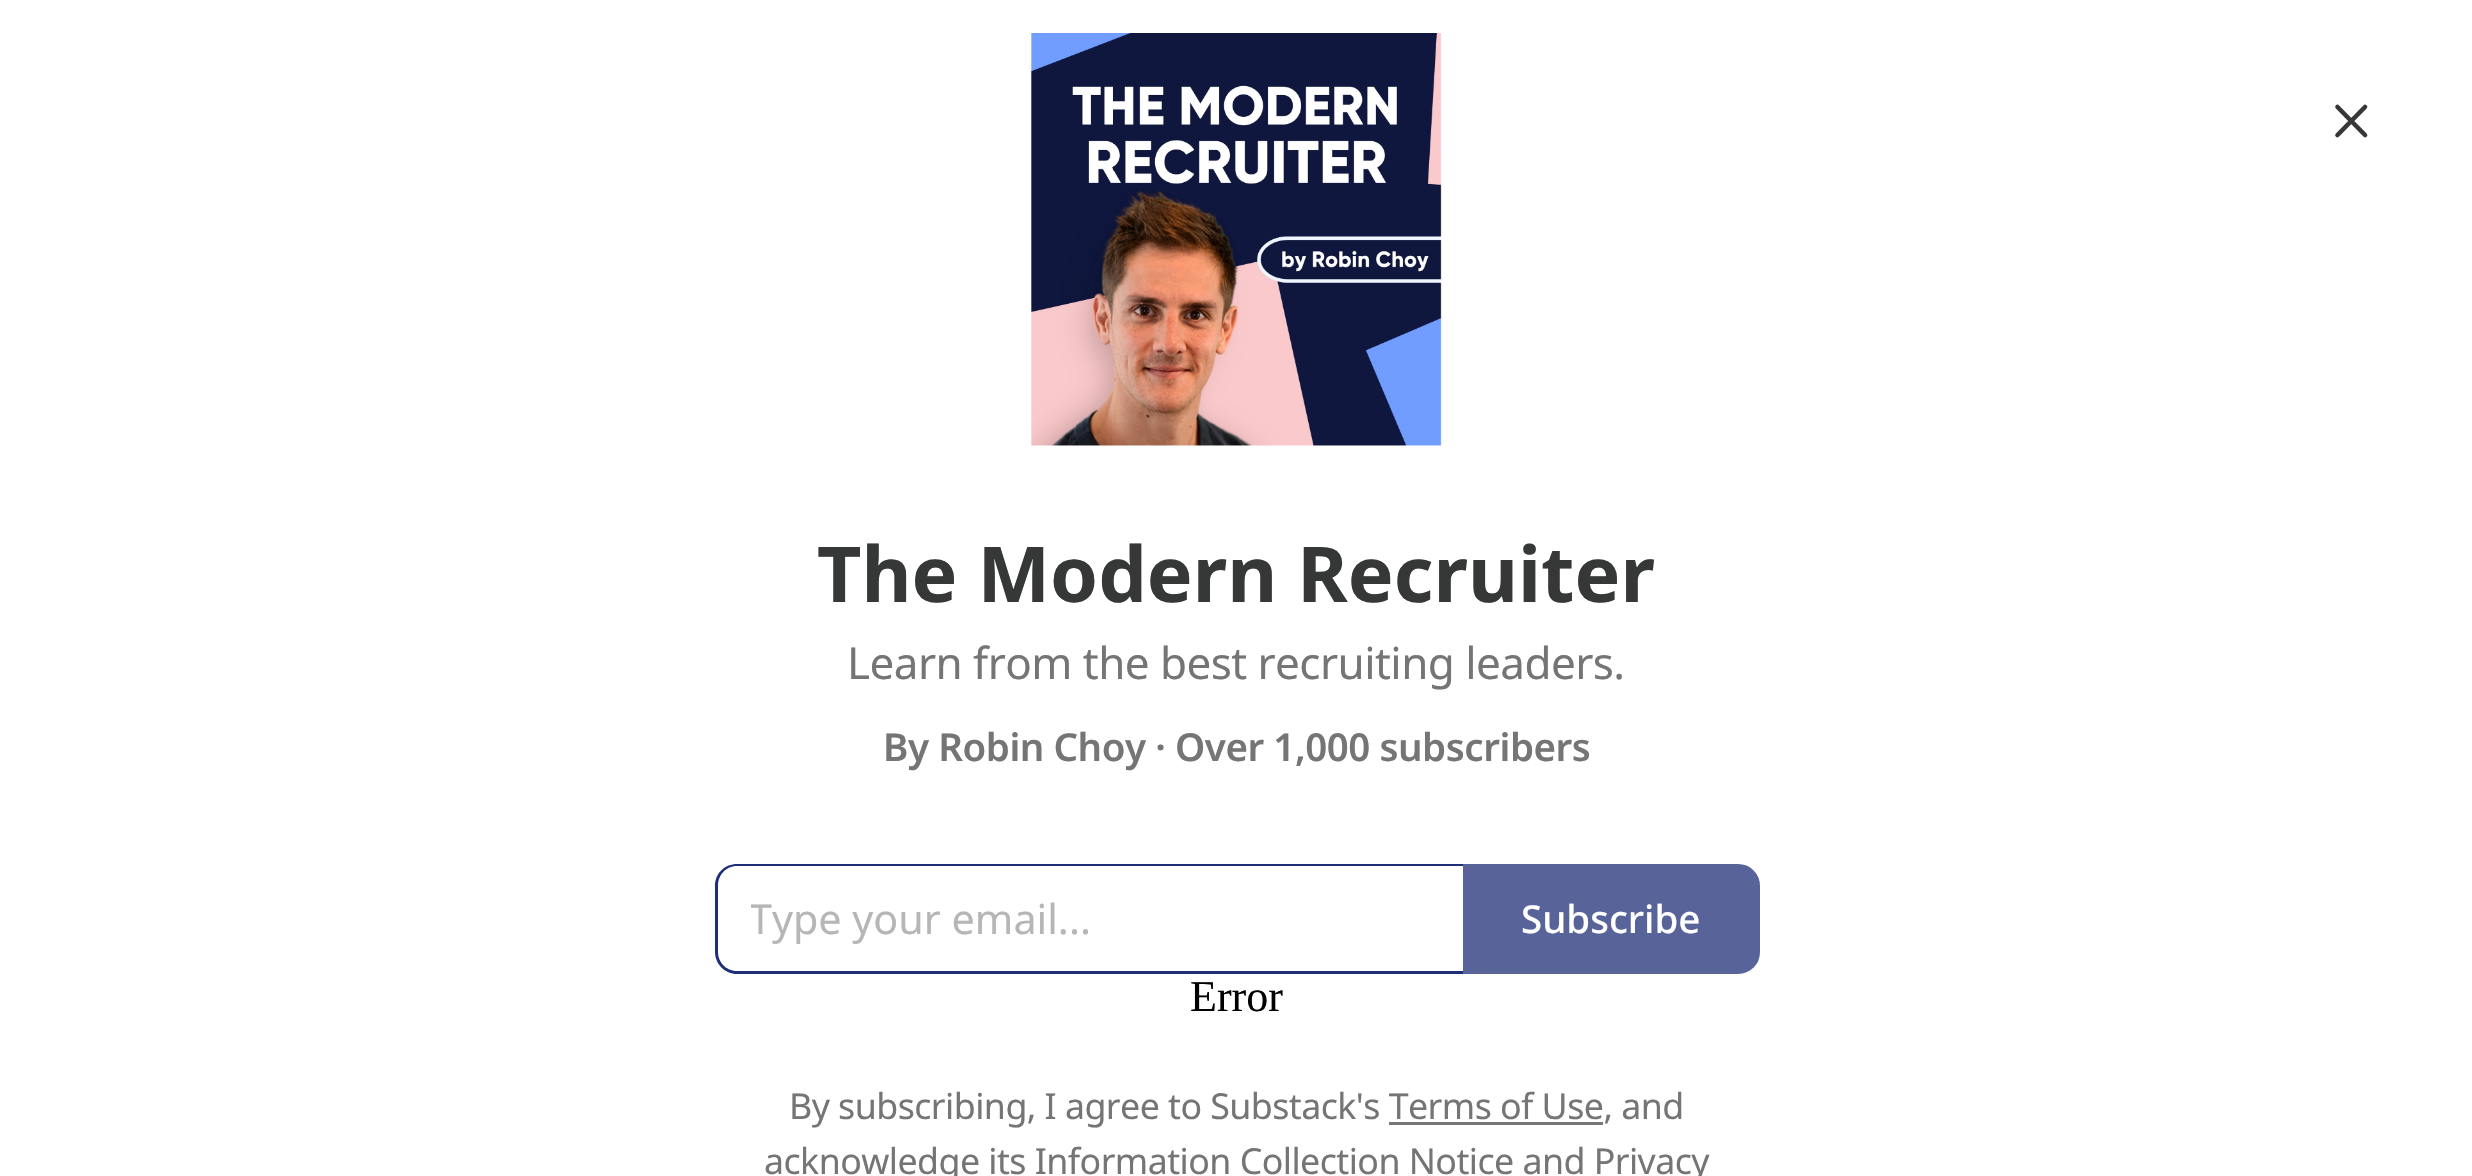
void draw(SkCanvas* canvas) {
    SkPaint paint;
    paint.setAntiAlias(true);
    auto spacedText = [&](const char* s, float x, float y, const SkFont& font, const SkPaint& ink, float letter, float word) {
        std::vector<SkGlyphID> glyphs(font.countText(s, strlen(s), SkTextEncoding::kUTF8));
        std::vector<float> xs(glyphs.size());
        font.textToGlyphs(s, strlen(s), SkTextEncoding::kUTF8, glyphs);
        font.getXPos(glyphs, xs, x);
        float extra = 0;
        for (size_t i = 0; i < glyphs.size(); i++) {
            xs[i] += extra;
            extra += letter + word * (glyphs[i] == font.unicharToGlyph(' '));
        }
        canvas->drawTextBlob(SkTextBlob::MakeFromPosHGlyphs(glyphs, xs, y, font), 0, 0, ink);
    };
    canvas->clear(0xFFFFFFFF);
    canvas->drawImageRect(SkImages::DeferredFromEncodedData(SkData::MakeFromFileName("img1.png")), SkRect::MakeXYWH(1031, 33, 411, 413), SkSamplingOptions());
    paint.setStyle(SkPaint::kStroke_Style);
    paint.setStrokeWidth(4.6f);
    paint.setStrokeCap(SkPaint::kRound_Cap);
    paint.setStrokeJoin(SkPaint::kRound_Join);
    paint.setColor(0xFF363737);
    canvas->drawPath(SkPathBuilder().moveTo(2365, 107).lineTo(2337.5f, 135).moveTo(2337.5f, 107).lineTo(2365, 135).detach(), paint);
    SkFont font1(fontMgr->matchFamilyStyle("Noto Sans", SkFontStyle::Bold()), 77);
    font1.setSubpixel(true);
    paint.setStyle(SkPaint::kFill_Style);
    canvas->drawString("The Modern Recruiter", 817, 602, font1, paint);
    SkFont font2(fontMgr->matchFamilyStyle("Noto Sans", SkFontStyle::Normal()), 44);
    font2.setSubpixel(true);
    paint.setColor(0xFF757575);
    spacedText("Learn from the best recruiting leaders.", 847, 679, font2, paint, -0.55f, 0);
    SkFont font3(fontMgr->matchFamilyStyle("Noto Sans", SkFontStyle(600, SkFontStyle::kNormal_Width, SkFontStyle::kUpright_Slant)), 38.5f);
    font3.setSubpixel(true);
    spacedText("By Robin Choy · Over 1,000 subscribers", 883, 761, font3, paint, -0.45f, 0);
    paint.setColor(0xFF1F2F77);
    canvas->drawPath(SkPathBuilder(SkPathFillType::kEvenOdd).moveTo(737, 864).lineTo(1463, 864).lineTo(1463, 974).lineTo(737, 974).cubicTo(725, 974, 715, 964, 715, 952).lineTo(715, 886).cubicTo(715, 873, 725, 864, 737, 864).close().moveTo(737, 866).lineTo(1463, 866).lineTo(1463, 971).lineTo(737, 971).cubicTo(726, 971, 718, 962, 718, 952).lineTo(718, 886).cubicTo(718, 875, 726, 866, 737, 866).close().detach(), paint);
    canvas->save();
    canvas->clipRect(SkRect::MakeXYWH(751, 891, 679, 55));
    SkFont font4(fontMgr->matchFamilyStyle("Noto Sans", SkFontStyle::Normal()), 41.25f);
    font4.setSubpixel(true);
    paint.setColor(0xFFB6B6B6);
    canvas->drawString("Type your email...", 749, 934, font4, paint);
    canvas->restore();
    paint.setColor(0xFF576399);
    canvas->drawPath(SkPathBuilder().moveTo(1464.5f, 865.5f).lineTo(1738, 865.5f).cubicTo(1749.5f, 865.5f, 1758.5f, 874.5f, 1758.5f, 886).lineTo(1758.5f, 952).cubicTo(1758.5f, 963.5f, 1749.5f, 972.5f, 1738, 972.5f).lineTo(1464.5f, 972.5f).close().detach(), paint);
    paint.setStyle(SkPaint::kStroke_Style);
    paint.setStrokeWidth(3);
    paint.setStrokeCap(SkPaint::kButt_Cap);
    paint.setStrokeJoin(SkPaint::kMiter_Join);
    canvas->drawPath(SkPathBuilder().moveTo(1464.5f, 865.5f).lineTo(1738, 865.5f).cubicTo(1749.5f, 865.5f, 1758.5f, 874.5f, 1758.5f, 886).lineTo(1758.5f, 952).cubicTo(1758.5f, 963.5f, 1749.5f, 972.5f, 1738, 972.5f).lineTo(1464.5f, 972.5f).close().detach(), paint);
    SkFont font5(fontMgr->matchFamilyStyle("Noto Sans", SkFontStyle(500, SkFontStyle::kNormal_Width, SkFontStyle::kUpright_Slant)), 38.5f);
    font5.setSubpixel(true);
    paint.setStyle(SkPaint::kFill_Style);
    paint.setColor(0xFFFFFFFF);
    canvas->drawString("Subscribe", 1521, 933, font5, paint);
    SkFont font6(fontMgr->matchFamilyStyle("Liberation Serif", SkFontStyle::Normal()), 44);
    font6.setSubpixel(true);
    paint.setColor(0xFF000000);
    canvas->drawString("Error", 1190, 1011, font6, paint);
    SkFont font7(fontMgr->matchFamilyStyle("Noto Sans", SkFontStyle::Normal()), 35.75f);
    font7.setSubpixel(true);
    paint.setColor(0xFF757575);
    spacedText("By subscribing, I agree to Substack's Terms of Use, and", 789, 1119, font7, paint, -0.55f, 0);
    paint.setColor(0xFF777777);
    canvas->drawRect(SkRect::MakeXYWH(1389, 1122, 214, 3), paint);
    paint.setColor(0xFF757575);
    spacedText("acknowledge its Information Collection Notice and Privacy", 764, 1174, font7, paint, -0.55f, 0);
}
